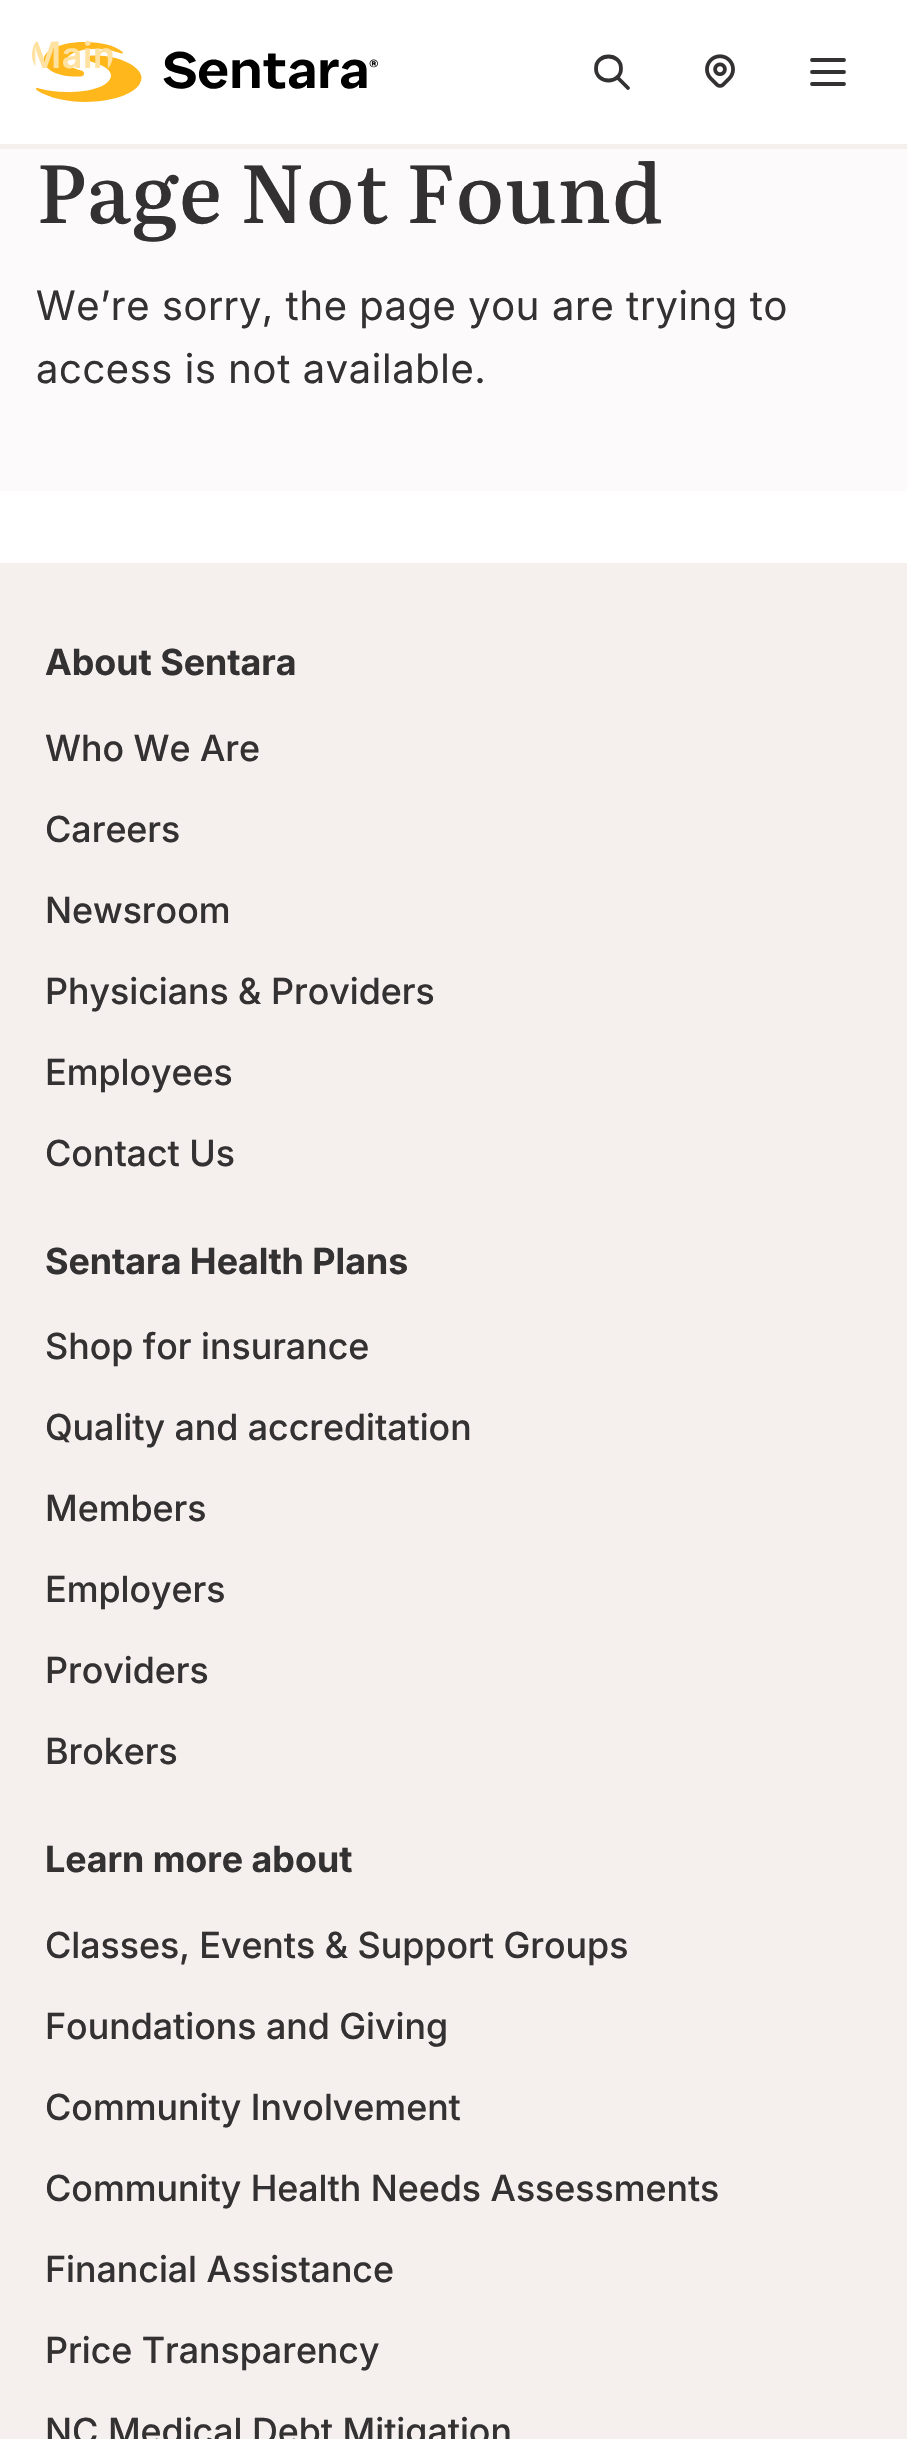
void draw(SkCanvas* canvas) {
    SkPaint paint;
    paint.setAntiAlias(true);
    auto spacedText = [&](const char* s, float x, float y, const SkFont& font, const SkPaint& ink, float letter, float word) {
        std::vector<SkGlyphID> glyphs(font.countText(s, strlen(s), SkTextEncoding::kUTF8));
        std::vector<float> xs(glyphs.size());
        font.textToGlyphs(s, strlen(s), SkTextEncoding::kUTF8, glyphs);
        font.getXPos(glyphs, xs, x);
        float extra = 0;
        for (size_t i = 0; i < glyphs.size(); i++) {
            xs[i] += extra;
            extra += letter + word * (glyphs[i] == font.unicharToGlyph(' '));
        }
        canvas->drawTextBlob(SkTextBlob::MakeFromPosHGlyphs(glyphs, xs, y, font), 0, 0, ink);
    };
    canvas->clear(0xFFFFFFFF);
    canvas->drawImageRect(SkImages::DeferredFromEncodedData(SkData::MakeFromFileName("img1.png")), SkRect::MakeXYWH(36, 42, 342, 60), SkSamplingOptions());
    canvas->save();
    canvas->clipPath(SkPathBuilder().moveTo(54.5f, 32).lineTo(90.5f, 32).cubicTo(103, 32, 113, 42, 113, 54.5f).cubicTo(113, 67, 103, 77, 90.5f, 77).lineTo(54.5f, 77).cubicTo(42, 77, 32, 67, 32, 54.5f).cubicTo(32, 42, 42, 32, 54.5f, 32).close().detach(), true);
    SkFont font1(fontMgr->matchFamilyStyle("Inter", SkFontStyle(600, SkFontStyle::kNormal_Width, SkFontStyle::kUpright_Slant)), 36);
    font1.setSubpixel(true);
    paint.setColor(0xFFFFE1A0);
    spacedText("Main", 28, 68, font1, paint, 0.7f, 0);
    canvas->restore();
    paint.setColor(0xFFF5F0EE);
    canvas->drawRect(SkRect::MakeXYWH(0, 144, 907, 5), paint);
    paint.setStyle(SkPaint::kStroke_Style);
    paint.setStrokeWidth(3.8f);
    paint.setStrokeCap(SkPaint::kRound_Cap);
    paint.setStrokeJoin(SkPaint::kRound_Join);
    paint.setColor(0xFF333131);
    canvas->drawPath(SkPathBuilder().moveTo(628, 88).lineTo(617, 77).moveTo(621, 68.5f).cubicTo(621, 84.5f, 596, 84.5f, 596, 68.5f).cubicTo(596, 52.5f, 621, 52.5f, 621, 68.5f).close().detach(), paint);
    canvas->drawImageRect(SkImages::DeferredFromEncodedData(SkData::MakeFromFileName("img2.png")), SkRect::MakeXYWH(705, 54, 30, 34), SkSamplingOptions());
    canvas->drawPath(SkPathBuilder().moveTo(812, 60).lineTo(844, 60).moveTo(812, 72).lineTo(844, 72).moveTo(812, 84).lineTo(844, 84).detach(), paint);
    paint.setStyle(SkPaint::kFill_Style);
    paint.setColor(0xFFFCFAFA);
    canvas->drawRect(SkRect::MakeXYWH(0, 149, 907, 342), paint);
    SkFont font2(fontMgr->matchFamilyStyle("Literata", SkFontStyle(500, SkFontStyle::kNormal_Width, SkFontStyle::kUpright_Slant)), 81);
    font2.setSubpixel(true);
    paint.setColor(0xFF333131);
    spacedText("Page Not Found", 36, 223, font2, paint, 0.7f, 0);
    SkFont font3(fontMgr->matchFamilyStyle("Inter", SkFontStyle::Normal()), 40.5f);
    font3.setSubpixel(true);
    spacedText("We’re sorry, the page you are trying to", 36, 320, font3, paint, 0.7f, 0);
    spacedText("access is not available.", 36, 383, font3, paint, 0.7f, 0);
    paint.setColor(0xFFF5F0EE);
    canvas->drawRect(SkRect::MakeXYWH(0, 563, 907, 1876), paint);
    SkFont font4(fontMgr->matchFamilyStyle("Inter", SkFontStyle::Bold()), 36);
    font4.setSubpixel(true);
    paint.setColor(0xFF333131);
    canvas->drawString("About Sentara", 45, 675, font4, paint);
    SkFont font5(fontMgr->matchFamilyStyle("Inter", SkFontStyle(500, SkFontStyle::kNormal_Width, SkFontStyle::kUpright_Slant)), 36);
    font5.setSubpixel(true);
    canvas->drawString("Who We Are", 45, 761, font5, paint);
    canvas->drawString("Careers", 45, 842, font5, paint);
    canvas->drawString("Newsroom", 45, 923, font5, paint);
    canvas->drawString("Physicians & Providers", 45, 1004, font5, paint);
    canvas->drawString("Employees", 45, 1085, font5, paint);
    canvas->drawString("Contact Us", 45, 1166, font5, paint);
    canvas->drawString("Sentara Health Plans", 45, 1274, font4, paint);
    canvas->drawString("Shop for insurance", 45, 1359, font5, paint);
    canvas->drawString("Quality and accreditation", 45, 1440, font5, paint);
    canvas->drawString("Members", 45, 1521, font5, paint);
    canvas->drawString("Employers", 45, 1602, font5, paint);
    canvas->drawString("Providers", 45, 1683, font5, paint);
    canvas->drawString("Brokers", 45, 1764, font5, paint);
    canvas->drawString("Learn more about", 45, 1872, font4, paint);
    canvas->drawString("Classes, Events & Support Groups", 45, 1958, font5, paint);
    canvas->drawString("Foundations and Giving", 45, 2039, font5, paint);
    canvas->drawString("Community Involvement", 45, 2120, font5, paint);
    canvas->drawString("Community Health Needs Assessments", 45, 2201, font5, paint);
    canvas->drawString("Financial Assistance", 45, 2282, font5, paint);
    canvas->drawString("Price Transparency", 45, 2363, font5, paint);
    canvas->drawString("NC Medical Debt Mitigation", 45, 2444, font5, paint);
}
